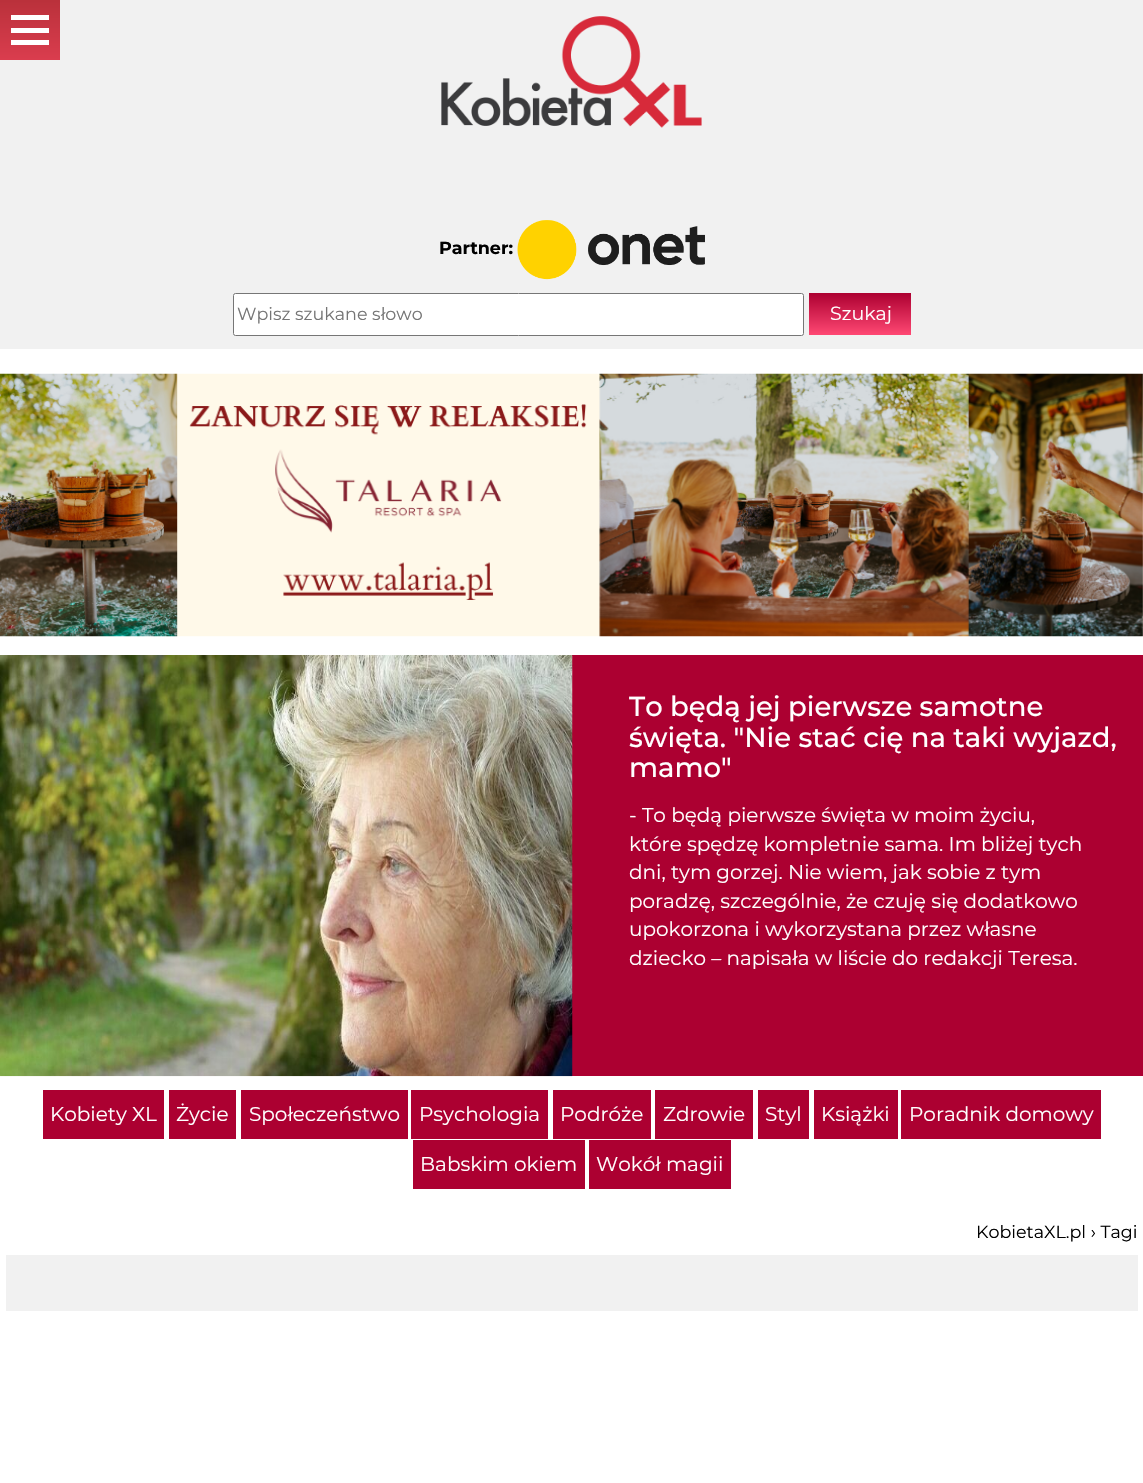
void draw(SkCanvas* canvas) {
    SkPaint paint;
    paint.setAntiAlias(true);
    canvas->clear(0xFFFFFFFF);
    paint.setColor(0xFFF1F1F1);
    canvas->drawRect(SkRect::MakeXYWH(0, 0, 1143, 349), paint);
    {
        const SkColor colors[] = {0xFFBA313B, 0xFFDA3D4E};
        const float stops[] = {0.01f, 1};
        const SkPoint ends[] = {{30, 0}, {30, 60}};
        paint.setShader(SkGradientShader::MakeLinear(ends, colors, stops, 2, SkTileMode::kClamp));
        paint.setAlpha(255);
    }
    canvas->drawRect(SkRect::MakeXYWH(0, 0, 60, 60), paint);
    paint.setShader(nullptr);
    paint.setColor(0xFFFFFFFF);
    canvas->drawRect(SkRect::MakeXYWH(11, 28, 38, 5), paint);
    canvas->drawRect(SkRect::MakeXYWH(11, 15, 38, 5), paint);
    canvas->drawRect(SkRect::MakeXYWH(11, 40, 38, 5), paint);
    canvas->drawImageRect(SkImages::DeferredFromEncodedData(SkData::MakeFromFileName("img1.png")), SkRect::MakeXYWH(441, 16, 261, 112), SkSamplingOptions());
    SkFont font1(fontMgr->matchFamilyStyle("Montserrat", SkFontStyle::Bold()), 17.5f);
    font1.setSubpixel(true);
    paint.setColor(0xFF000000);
    canvas->drawString("Partner:", 439, 254, font1, paint);
    canvas->drawImageRect(SkImages::DeferredFromEncodedData(SkData::MakeFromFileName("img2.png")), SkRect::MakeXYWH(517, 220, 188, 60), SkSamplingOptions());
    paint.setColor(0xFFFFFFFF);
    canvas->drawRoundRect(SkRect::MakeXYWH(233.5f, 293.5f, 570, 42), 2, 2, paint);
    paint.setStyle(SkPaint::kStroke_Style);
    paint.setStrokeWidth(1);
    paint.setColor(0xFF767676);
    canvas->drawRoundRect(SkRect::MakeXYWH(233.5f, 293.5f, 570, 42), 2, 2, paint);
    SkFont font2(fontMgr->matchFamilyStyle("Montserrat", SkFontStyle::Normal()), 17.5f);
    font2.setSubpixel(true);
    paint.setStyle(SkPaint::kFill_Style);
    paint.setColor(0xFF757575);
    canvas->drawString("Wpisz szukane słowo", 237, 320, font2, paint);
    {
        const SkColor colors[] = {0xFFAC0031, 0xFFFF4873};
        const float stops[] = {0, 1};
        const SkPoint ends[] = {{860, 293}, {860, 335}};
        paint.setShader(SkGradientShader::MakeLinear(ends, colors, stops, 2, SkTileMode::kClamp));
        paint.setAlpha(255);
    }
    canvas->drawRect(SkRect::MakeXYWH(809, 293, 102, 42), paint);
    SkFont font3(fontMgr->matchFamilyStyle("Montserrat", SkFontStyle::Normal()), 19);
    font3.setSubpixel(true);
    paint.setShader(nullptr);
    paint.setColor(0xFFFFFFFF);
    canvas->drawString("Szukaj", 830, 320, font3, paint);
    canvas->drawImageRect(SkImages::DeferredFromEncodedData(SkData::MakeFromFileName("img3.png")), SkRect::MakeXYWH(0, 373, 1143, 264), SkSamplingOptions());
    paint.setColor(0xFFAC0031);
    canvas->drawRect(SkRect::MakeXYWH(572, 655, 571, 421), paint);
    canvas->drawImageRect(SkImages::DeferredFromEncodedData(SkData::MakeFromFileName("img4.png")), SkRect::MakeXYWH(0, 655, 573, 422), SkSamplingOptions());
    SkFont font4(fontMgr->matchFamilyStyle("Montserrat", SkFontStyle(500, SkFontStyle::kNormal_Width, SkFontStyle::kUpright_Slant)), 27.5f);
    font4.setSubpixel(true);
    paint.setColor(0xFFFFFFFF);
    canvas->drawString("To będą jej pierwsze samotne", 629, 716, font4, paint);
    canvas->drawString("święta. \"Nie stać cię na taki wyjazd,", 629, 747, font4, paint);
    canvas->drawString("mamo\"", 629, 777, font4, paint);
    SkFont font5(fontMgr->matchFamilyStyle("Montserrat", SkFontStyle::Normal()), 20);
    font5.setSubpixel(true);
    canvas->drawString("- To będą pierwsze święta w moim życiu,", 629, 822, font5, paint);
    canvas->drawString("które spędzę kompletnie sama. Im bliżej tych", 629, 851, font5, paint);
    canvas->drawString("dni, tym gorzej. Nie wiem, jak sobie z tym", 629, 879, font5, paint);
    canvas->drawString("poradzę, szczególnie, że czuję się dodatkowo", 629, 908, font5, paint);
    canvas->drawString("upokorzona i wykorzystana przez własne", 629, 936, font5, paint);
    canvas->drawString("dziecko – napisała w liście do redakcji Teresa.", 629, 965, font5, paint);
    paint.setColor(0xFFAC0031);
    canvas->drawRect(SkRect::MakeXYWH(43, 1090, 121, 49), paint);
    paint.setColor(0xFFFFFFFF);
    canvas->drawString("Kobiety XL", 50, 1121, font5, paint);
    paint.setColor(0xFFAC0031);
    canvas->drawRect(SkRect::MakeXYWH(169, 1090, 67, 49), paint);
    paint.setColor(0xFFFFFFFF);
    canvas->drawString("Życie", 176, 1121, font5, paint);
    paint.setColor(0xFFAC0031);
    canvas->drawRect(SkRect::MakeXYWH(241, 1090, 167, 49), paint);
    paint.setColor(0xFFFFFFFF);
    canvas->drawString("Społeczeństwo", 249, 1121, font5, paint);
    paint.setColor(0xFFAC0031);
    canvas->drawRect(SkRect::MakeXYWH(411, 1090, 137, 49), paint);
    paint.setColor(0xFFFFFFFF);
    canvas->drawString("Psychologia", 419, 1121, font5, paint);
    paint.setColor(0xFFAC0031);
    canvas->drawRect(SkRect::MakeXYWH(553, 1090, 98, 49), paint);
    paint.setColor(0xFFFFFFFF);
    canvas->drawString("Podróże", 560, 1121, font5, paint);
    paint.setColor(0xFFAC0031);
    canvas->drawRect(SkRect::MakeXYWH(655, 1090, 98, 49), paint);
    paint.setColor(0xFFFFFFFF);
    canvas->drawString("Zdrowie", 663, 1121, font5, paint);
    paint.setColor(0xFFAC0031);
    canvas->drawRect(SkRect::MakeXYWH(758, 1090, 51, 49), paint);
    paint.setColor(0xFFFFFFFF);
    canvas->drawString("Styl", 765, 1121, font5, paint);
    paint.setColor(0xFFAC0031);
    canvas->drawRect(SkRect::MakeXYWH(814, 1090, 84, 49), paint);
    paint.setColor(0xFFFFFFFF);
    canvas->drawString("Książki", 821, 1121, font5, paint);
    paint.setColor(0xFFAC0031);
    canvas->drawRect(SkRect::MakeXYWH(901, 1090, 200, 49), paint);
    paint.setColor(0xFFFFFFFF);
    canvas->drawString("Poradnik domowy", 909, 1121, font5, paint);
    paint.setColor(0xFFAC0031);
    canvas->drawRect(SkRect::MakeXYWH(413, 1140, 172, 49), paint);
    paint.setColor(0xFFFFFFFF);
    canvas->drawString("Babskim okiem", 420, 1171, font5, paint);
    paint.setColor(0xFFAC0031);
    canvas->drawRect(SkRect::MakeXYWH(589, 1140, 142, 49), paint);
    paint.setColor(0xFFFFFFFF);
    canvas->drawString("Wokół magii", 596, 1171, font5, paint);
    paint.setColor(0xFF000000);
    canvas->drawString("KobietaXL.pl › Tagi", 976, 1238, font2, paint);
    paint.setColor(0xFFF1F1F1);
    canvas->drawRect(SkRect::MakeXYWH(6, 1255, 1132, 56), paint);
}
